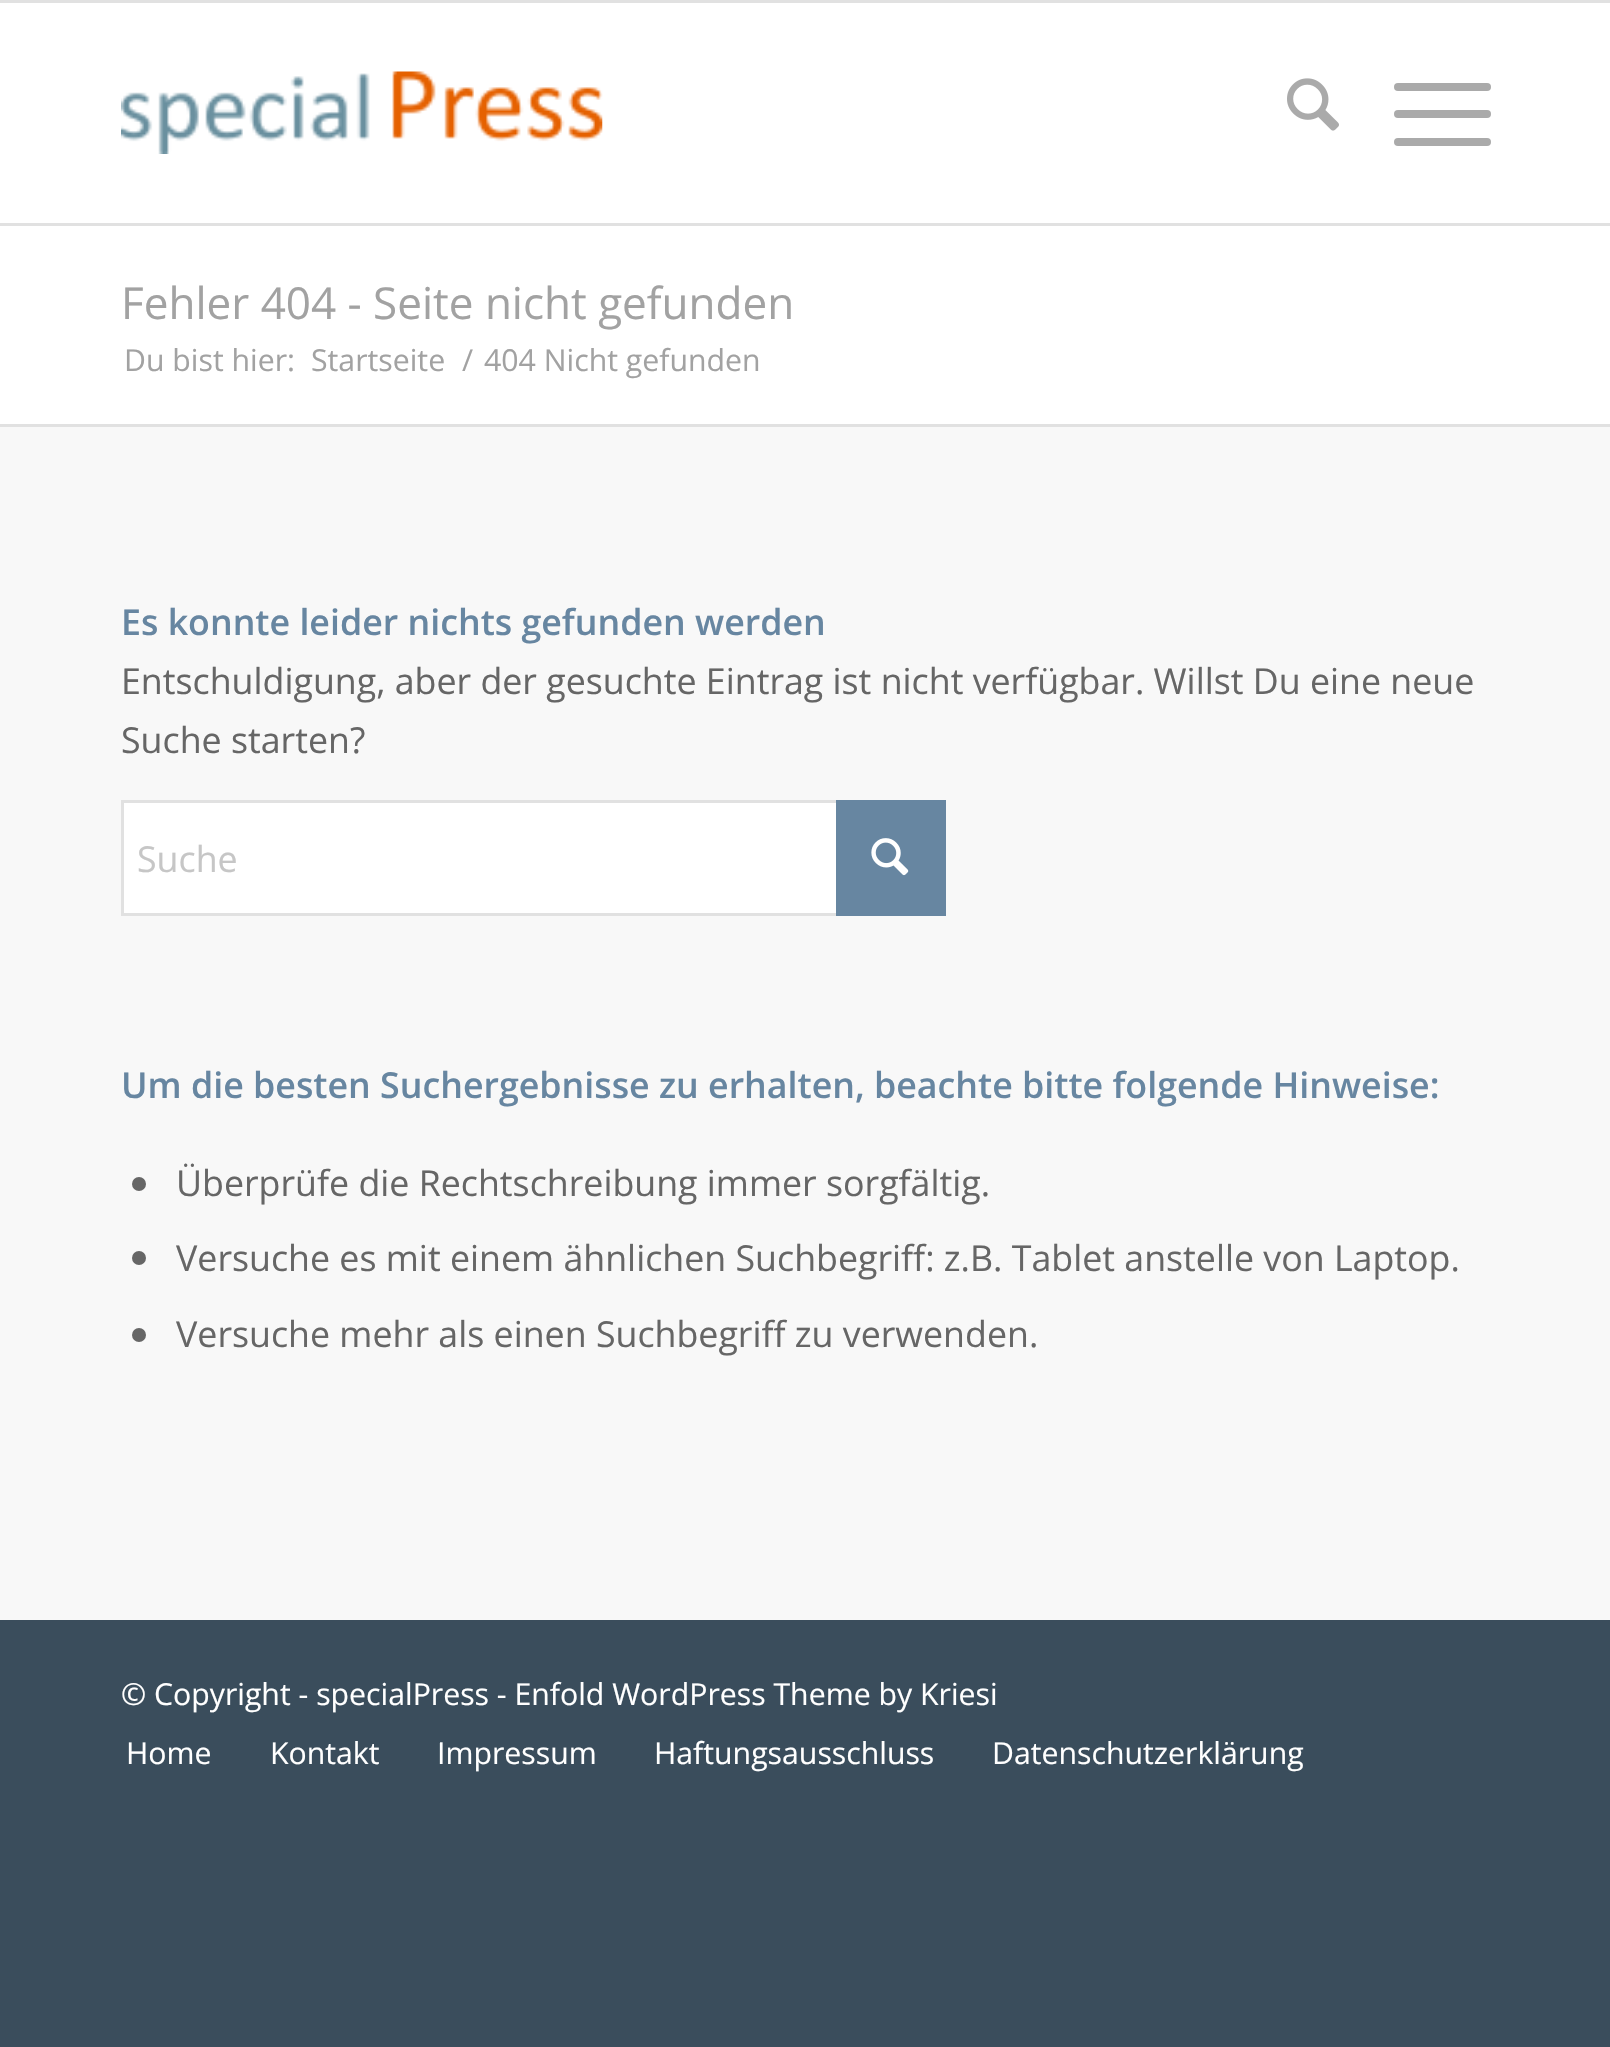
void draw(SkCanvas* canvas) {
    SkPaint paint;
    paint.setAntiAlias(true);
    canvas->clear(0xFF3A4D5C);
    paint.setColor(0xFFE1E1E1);
    canvas->drawRect(SkRect::MakeXYWH(0, 0, 1610, 3), paint);
    canvas->drawRect(SkRect::MakeXYWH(0, 223, 1610, 3), paint);
    paint.setColor(0xFFFFFFFF);
    canvas->drawRect(SkRect::MakeXYWH(0, 3, 1610, 220), paint);
    canvas->drawImageRect(SkImages::DeferredFromEncodedData(SkData::MakeFromFileName("img1.png")), SkRect::MakeXYWH(121, 71, 482, 83), SkSamplingOptions());
    canvas->drawImageRect(SkImages::DeferredFromEncodedData(SkData::MakeFromFileName("img2.png")), SkRect::MakeXYWH(1287, 78, 52, 53), SkSamplingOptions());
    paint.setColor(0xFFAAAAAA);
    canvas->drawRoundRect(SkRect::MakeXYWH(1394, 110, 97, 8), 4, 4, paint);
    canvas->drawRoundRect(SkRect::MakeXYWH(1394, 83, 97, 8), 4, 4, paint);
    canvas->drawRoundRect(SkRect::MakeXYWH(1394, 138, 97, 8), 4, 4, paint);
    paint.setColor(0xFFFFFFFF);
    canvas->drawRect(SkRect::MakeXYWH(0, 226, 1610, 198), paint);
    SkFont font1(fontMgr->matchFamilyStyle("Open Sans", SkFontStyle::Normal()), 44);
    font1.setSubpixel(true);
    paint.setColor(0xFFA2A2A2);
    canvas->drawString("Fehler 404 - Seite nicht gefunden", 121, 319, font1, paint);
    SkFont font2(fontMgr->matchFamilyStyle("Open Sans", SkFontStyle::Normal()), 30.25f);
    font2.setSubpixel(true);
    canvas->drawString("Du bist hier:", 124, 371, font2, paint);
    canvas->drawString("Startseite", 311, 371, font2, paint);
    canvas->drawString("/", 462, 371, font2, paint);
    canvas->drawString("404 Nicht gefunden", 484, 371, font2, paint);
    paint.setColor(0xFFF8F8F8);
    canvas->drawRect(SkRect::MakeXYWH(0, 427, 1610, 1193), paint);
    paint.setColor(0xFFE1E1E1);
    canvas->drawRect(SkRect::MakeXYWH(0, 424, 1610, 3), paint);
    SkFont font3(fontMgr->matchFamilyStyle("Open Sans", SkFontStyle(600, SkFontStyle::kNormal_Width, SkFontStyle::kUpright_Slant)), 35.75f);
    font3.setSubpixel(true);
    paint.setColor(0xFF6786A1);
    canvas->drawString("Es konnte leider nichts gefunden werden", 121, 635, font3, paint);
    SkFont font4(fontMgr->matchFamilyStyle("Open Sans", SkFontStyle::Normal()), 35.75f);
    font4.setSubpixel(true);
    paint.setColor(0xFF666666);
    canvas->drawString("Entschuldigung, aber der gesuchte Eintrag ist nicht verfügbar. Willst Du eine neue", 121, 694, font4, paint);
    canvas->drawString("Suche starten?", 121, 753, font4, paint);
    paint.setColor(0xFFFFFFFF);
    canvas->drawRect(SkRect::MakeXYWH(124, 803, 712, 110), paint);
    paint.setStyle(SkPaint::kStroke_Style);
    paint.setStrokeWidth(3);
    paint.setColor(0xFFE1E1E1);
    canvas->drawRect(SkRect::MakeXYWH(122.5f, 801.5f, 822, 113), paint);
    paint.setStyle(SkPaint::kFill_Style);
    paint.setColor(0xFF6786A1);
    canvas->drawRect(SkRect::MakeXYWH(836, 800, 110, 116), paint);
    paint.setColor(0xFFC6C6C6);
    canvas->drawString("Suche", 137, 872, font4, paint);
    canvas->drawImageRect(SkImages::DeferredFromEncodedData(SkData::MakeFromFileName("img3.png")), SkRect::MakeXYWH(871, 838, 38, 38), SkSamplingOptions());
    paint.setColor(0xFF6786A1);
    canvas->drawString("Um die besten Suchergebnisse zu erhalten, beachte bitte folgende Hinweise:", 121, 1098, font3, paint);
    paint.setColor(0xFF666666);
    canvas->drawCircle(139, 1184, 7, paint);
    canvas->drawString("Überprüfe die Rechtschreibung immer sorgfältig.", 176, 1196, font4, paint);
    canvas->drawCircle(139, 1258, 7, paint);
    canvas->drawString("Versuche es mit einem ähnlichen Suchbegriff: z.B. Tablet anstelle von Laptop.", 176, 1271, font4, paint);
    canvas->drawCircle(139, 1335, 7, paint);
    canvas->drawString("Versuche mehr als einen Suchbegriff zu verwenden.", 176, 1347, font4, paint);
    paint.setColor(0xFFFFFFFF);
    canvas->drawString("© Copyright - specialPress - Enfold WordPress Theme by Kriesi", 121, 1705, font2, paint);
    canvas->drawString("Home", 126, 1764, font2, paint);
    canvas->drawString("Kontakt", 270, 1764, font2, paint);
    canvas->drawString("Impressum", 437, 1764, font2, paint);
    canvas->drawString("Haftungsausschluss", 654, 1764, font2, paint);
    canvas->drawString("Datenschutzerklärung", 992, 1764, font2, paint);
}
